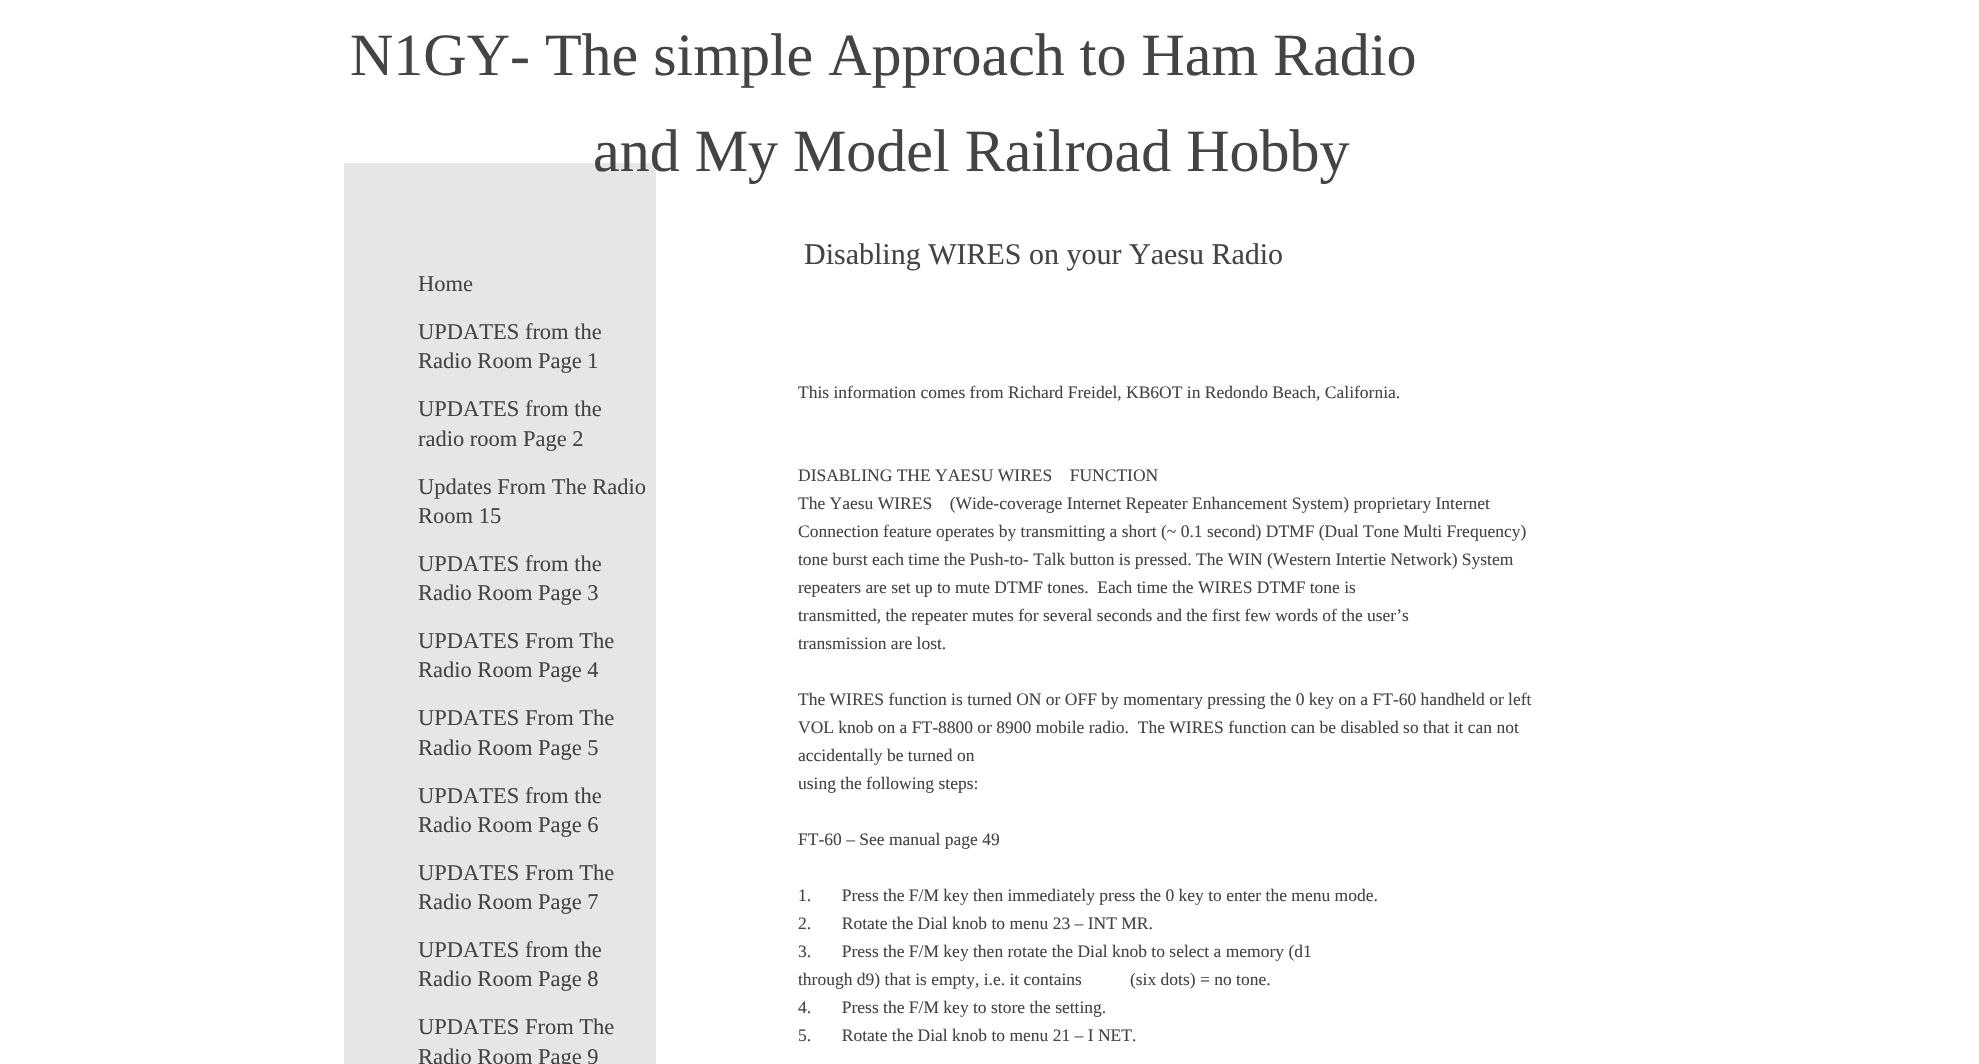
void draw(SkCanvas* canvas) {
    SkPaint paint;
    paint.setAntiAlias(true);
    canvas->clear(0xFFFFFFFF);
    SkFont font1(fontMgr->matchFamilyStyle("Liberation Serif", SkFontStyle::Normal()), 60);
    font1.setSubpixel(true);
    paint.setColor(0xFF444444);
    canvas->drawString("N1GY- The simple Approach to Ham Radio", 350, 75, font1, paint);
    paint.setColor(0xFFE6E6E6);
    canvas->drawRect(SkRect::MakeXYWH(344, 163, 312, 901), paint);
    paint.setColor(0xFF444444);
    canvas->drawString("and My Model Railroad Hobby", 593, 171, font1, paint);
    SkFont font2(fontMgr->matchFamilyStyle("Liberation Serif", SkFontStyle::Normal()), 30);
    font2.setSubpixel(true);
    canvas->drawString("Disabling WIRES on your Yaesu Radio", 804, 264, font2, paint);
    SkFont font3(fontMgr->matchFamilyStyle("Liberation Serif", SkFontStyle::Normal()), 22.5f);
    font3.setSubpixel(true);
    canvas->drawString("Home", 418, 291, font3, paint);
    canvas->drawString("UPDATES from the", 418, 339, font3, paint);
    canvas->drawString("Radio Room Page 1", 418, 368, font3, paint);
    canvas->drawString("UPDATES from the", 418, 416, font3, paint);
    canvas->drawString("radio room Page 2", 418, 446, font3, paint);
    canvas->drawString("Updates From The Radio", 418, 494, font3, paint);
    canvas->drawString("Room 15", 418, 523, font3, paint);
    canvas->drawString("UPDATES from the", 418, 571, font3, paint);
    canvas->drawString("Radio Room Page 3", 418, 600, font3, paint);
    canvas->drawString("UPDATES From The", 418, 648, font3, paint);
    canvas->drawString("Radio Room Page 4", 418, 677, font3, paint);
    canvas->drawString("UPDATES From The", 418, 725, font3, paint);
    canvas->drawString("Radio Room Page 5", 418, 755, font3, paint);
    canvas->drawString("UPDATES from the", 418, 803, font3, paint);
    canvas->drawString("Radio Room Page 6", 418, 832, font3, paint);
    canvas->drawString("UPDATES From The", 418, 880, font3, paint);
    canvas->drawString("Radio Room Page 7", 418, 909, font3, paint);
    canvas->drawString("UPDATES from the", 418, 957, font3, paint);
    canvas->drawString("Radio Room Page 8", 418, 986, font3, paint);
    canvas->drawString("UPDATES From The", 418, 1034, font3, paint);
    canvas->drawString("Radio Room Page 9", 418, 1064, font3, paint);
    SkFont font4(fontMgr->matchFamilyStyle("Liberation Serif", SkFontStyle::Normal()), 17.5f);
    font4.setSubpixel(true);
    canvas->drawString("This information comes from Richard Freidel, KB6OT in Redondo Beach, California.", 798, 398, font4, paint);
    canvas->drawString("DISABLING THE YAESU WIRES    FUNCTION", 798, 481, font4, paint);
    canvas->drawString("The Yaesu WIRES    (Wide-coverage Internet Repeater Enhancement System) proprietary Internet", 798, 509, font4, paint);
    canvas->drawString("Connection feature operates by transmitting a short (~ 0.1 second) DTMF (Dual Tone Multi Frequency)", 798, 537, font4, paint);
    canvas->drawString("tone burst each time the Push-to- Talk button is pressed. The WIN (Western Intertie Network) System", 798, 565, font4, paint);
    canvas->drawString("repeaters are set up to mute DTMF tones.  Each time the WIRES DTMF tone is", 798, 593, font4, paint);
    canvas->drawString("transmitted, the repeater mutes for several seconds and the first few words of the user’s", 798, 621, font4, paint);
    canvas->drawString("transmission are lost.", 798, 649, font4, paint);
    canvas->drawString("The WIRES function is turned ON or OFF by momentary pressing the 0 key on a FT-60 handheld or left", 798, 705, font4, paint);
    canvas->drawString("VOL knob on a FT-8800 or 8900 mobile radio.  The WIRES function can be disabled so that it can not", 798, 733, font4, paint);
    canvas->drawString("accidentally be turned on", 798, 761, font4, paint);
    canvas->drawString("using the following steps:", 798, 789, font4, paint);
    canvas->drawString("FT-60 – See manual page 49", 798, 845, font4, paint);
    canvas->drawString("1.       Press the F/M key then immediately press the 0 key to enter the menu mode.", 798, 901, font4, paint);
    canvas->drawString("2.       Rotate the Dial knob to menu 23 – INT MR.", 798, 929, font4, paint);
    canvas->drawString("3.       Press the F/M key then rotate the Dial knob to select a memory (d1", 798, 957, font4, paint);
    canvas->drawString("through d9) that is empty, i.e. it contains           (six dots) = no tone.", 798, 985, font4, paint);
    canvas->drawString("4.       Press the F/M key to store the setting.", 798, 1013, font4, paint);
    canvas->drawString("5.       Rotate the Dial knob to menu 21 – I NET.", 798, 1041, font4, paint);
}
